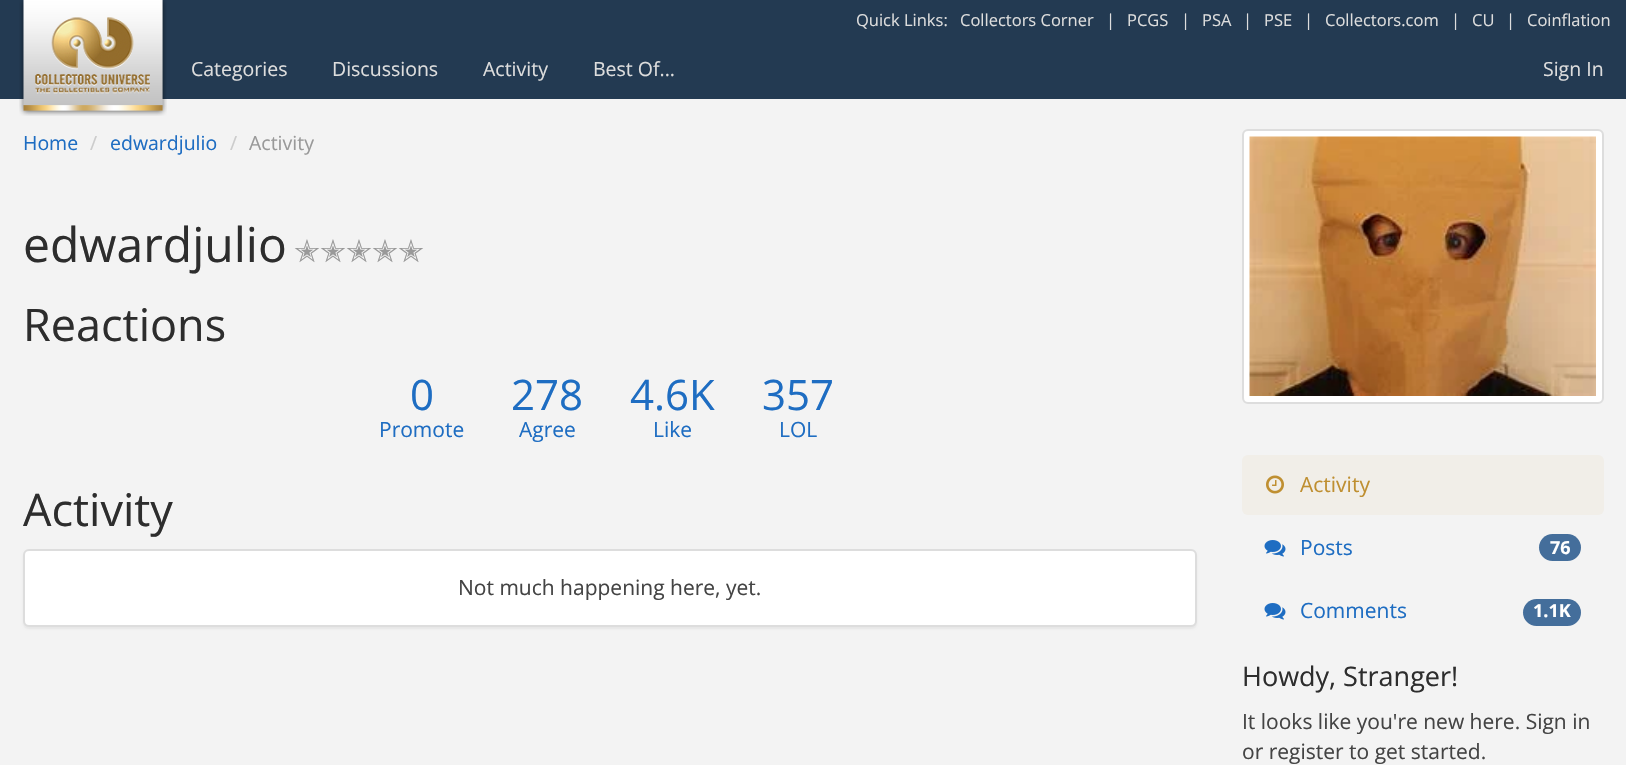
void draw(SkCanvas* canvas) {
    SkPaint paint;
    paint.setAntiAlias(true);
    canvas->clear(0xFFF3F3F3);
    paint.setColor(0xFF233A52);
    canvas->drawRect(SkRect::MakeXYWH(0, 0, 1626, 99), paint);
    canvas->drawImageRect(SkImages::DeferredFromEncodedData(SkData::MakeFromFileName("img1.png")), SkRect::MakeXYWH(19, 0, 148, 116), SkSamplingOptions());
    SkFont font1(fontMgr->matchFamilyStyle("Open Sans", SkFontStyle::Normal()), 16.5f);
    font1.setSubpixel(true);
    paint.setColor(0xFFDDDDDD);
    canvas->drawString("Quick Links:", 856, 26, font1, paint);
    canvas->drawString("Collectors Corner", 960, 26, font1, paint);
    canvas->drawString("|", 1106, 26, font1, paint);
    canvas->drawString("PCGS", 1127, 26, font1, paint);
    canvas->drawString("|", 1181, 26, font1, paint);
    canvas->drawString("PSA", 1202, 26, font1, paint);
    canvas->drawString("|", 1243, 26, font1, paint);
    canvas->drawString("PSE", 1264, 26, font1, paint);
    canvas->drawString("|", 1304, 26, font1, paint);
    canvas->drawString("Collectors.com", 1325, 26, font1, paint);
    canvas->drawString("|", 1451, 26, font1, paint);
    canvas->drawString("CU", 1472, 26, font1, paint);
    canvas->drawString("|", 1506, 26, font1, paint);
    canvas->drawString("Coinflation", 1527, 26, font1, paint);
    SkFont font2(fontMgr->matchFamilyStyle("Open Sans", SkFontStyle::Normal()), 19.5f);
    font2.setSubpixel(true);
    canvas->drawString("Categories", 191, 76, font2, paint);
    canvas->drawString("Discussions", 332, 76, font2, paint);
    canvas->drawString("Activity", 483, 76, font2, paint);
    canvas->drawString("Best Of...", 593, 76, font2, paint);
    canvas->drawString("Sign In", 1543, 76, font2, paint);
    paint.setColor(0xFF1E6DC2);
    canvas->drawString("Home", 23, 150, font2, paint);
    paint.setColor(0xFFCCCCCC);
    canvas->drawString("/", 90, 150, font2, paint);
    paint.setColor(0xFF1E6DC2);
    canvas->drawString("edwardjulio", 110, 150, font2, paint);
    paint.setColor(0xFFCCCCCC);
    canvas->drawString("/", 230, 150, font2, paint);
    paint.setColor(0xFF999999);
    canvas->drawString("Activity", 249, 150, font2, paint);
    SkFont font3(fontMgr->matchFamilyStyle("Open Sans", SkFontStyle::Normal()), 48);
    font3.setSubpixel(true);
    paint.setColor(0xFF2D2D2D);
    canvas->drawString("edwardjulio", 23, 262, font3, paint);
    SkFont font4(fontMgr->matchFamilyStyle("DejaVu Sans", SkFontStyle::Normal()), 31);
    font4.setSubpixel(true);
    paint.setColor(0xFF999999);
    canvas->drawString("✭✭✭✭✭", 294, 262, font4, paint);
    SkFont font5(fontMgr->matchFamilyStyle("Open Sans", SkFontStyle::Normal()), 45);
    font5.setSubpixel(true);
    paint.setColor(0xFF2D2D2D);
    canvas->drawString("Reactions", 23, 341, font5, paint);
    SkFont font6(fontMgr->matchFamilyStyle("Open Sans", SkFontStyle::Normal()), 42);
    font6.setSubpixel(true);
    paint.setColor(0xFF1E6DC2);
    canvas->drawString("0", 410, 410, font6, paint);
    SkFont font7(fontMgr->matchFamilyStyle("Open Sans", SkFontStyle::Normal()), 21);
    font7.setSubpixel(true);
    canvas->drawString("Promote", 379, 437, font7, paint);
    canvas->drawString("278", 511, 410, font6, paint);
    canvas->drawString("Agree", 519, 437, font7, paint);
    canvas->drawString("4.6K", 630, 410, font6, paint);
    canvas->drawString("Like", 653, 437, font7, paint);
    canvas->drawString("357", 762, 410, font6, paint);
    canvas->drawString("LOL", 779, 437, font7, paint);
    paint.setColor(0xFF2D2D2D);
    canvas->drawString("Activity", 23, 526, font5, paint);
    paint.setColor(0x0D000000);
    paint.setMaskFilter(SkMaskFilter::MakeBlur(kNormal_SkBlurStyle, 1));
    canvas->drawRoundRect(SkRect::MakeXYWH(23, 551, 1174, 78), 6, 6, paint);
    paint.setMaskFilter(nullptr);
    paint.setColor(0xFFFFFFFF);
    canvas->drawRoundRect(SkRect::MakeXYWH(24, 550, 1172, 76), 5, 5, paint);
    paint.setStyle(SkPaint::kStroke_Style);
    paint.setStrokeWidth(2);
    paint.setColor(0xFFDDDDDD);
    canvas->drawRoundRect(SkRect::MakeXYWH(24, 550, 1172, 76), 5, 5, paint);
    paint.setStyle(SkPaint::kFill_Style);
    paint.setColor(0xFF444444);
    canvas->drawString("Not much happening here, yet.", 458, 595, font7, paint);
    paint.setColor(0xFFFFFFFF);
    canvas->drawRoundRect(SkRect::MakeXYWH(1243, 130, 360, 273), 5, 5, paint);
    paint.setStyle(SkPaint::kStroke_Style);
    paint.setColor(0xFFDDDDDD);
    canvas->drawRoundRect(SkRect::MakeXYWH(1243, 130, 360, 273), 5, 5, paint);
    canvas->drawImageRect(SkImages::DeferredFromEncodedData(SkData::MakeFromFileName("img2.png")), SkRect::MakeXYWH(1249, 136, 347, 260), SkSamplingOptions());
    paint.setStyle(SkPaint::kFill_Style);
    paint.setColor(0xFFF1EEE8);
    canvas->drawRoundRect(SkRect::MakeXYWH(1242, 455, 362, 60), 6, 6, paint);
    canvas->drawImageRect(SkImages::DeferredFromEncodedData(SkData::MakeFromFileName("img3.png")), SkRect::MakeXYWH(1266, 475, 18, 19), SkSamplingOptions());
    paint.setColor(0xFFBF8F31);
    canvas->drawString("Activity", 1300, 492, font7, paint);
    canvas->drawImageRect(SkImages::DeferredFromEncodedData(SkData::MakeFromFileName("img4.png")), SkRect::MakeXYWH(1264, 540, 22, 17), SkSamplingOptions());
    paint.setColor(0xFF1E6DC2);
    canvas->drawString("Posts", 1300, 555, font7, paint);
    paint.setColor(0xFF446E9B);
    canvas->drawRoundRect(SkRect::MakeXYWH(1539, 534, 42, 27), 13.5f, 13.5f, paint);
    SkFont font8(fontMgr->matchFamilyStyle("Open Sans", SkFontStyle::Bold()), 18);
    font8.setSubpixel(true);
    paint.setColor(0xFFFFFFFF);
    canvas->drawString("76", 1550, 554, font8, paint);
    canvas->drawImageRect(SkImages::DeferredFromEncodedData(SkData::MakeFromFileName("img4.png")), SkRect::MakeXYWH(1264, 603, 22, 17), SkSamplingOptions());
    paint.setColor(0xFF1E6DC2);
    canvas->drawString("Comments", 1300, 618, font7, paint);
    paint.setColor(0xFF446E9B);
    canvas->drawRoundRect(SkRect::MakeXYWH(1523, 599, 58, 27), 13.5f, 13.5f, paint);
    paint.setColor(0xFFFFFFFF);
    canvas->drawString("1.1K", 1533, 617, font8, paint);
    SkFont font9(fontMgr->matchFamilyStyle("Open Sans", SkFontStyle::Normal()), 27);
    font9.setSubpixel(true);
    paint.setColor(0xFF2D2D2D);
    canvas->drawString("Howdy, Stranger!", 1242, 686, font9, paint);
    paint.setColor(0xFF444444);
    canvas->drawString("It looks like you're new here. Sign in", 1242, 729, font7, paint);
    canvas->drawString("or register to get started.", 1242, 759, font7, paint);
}
